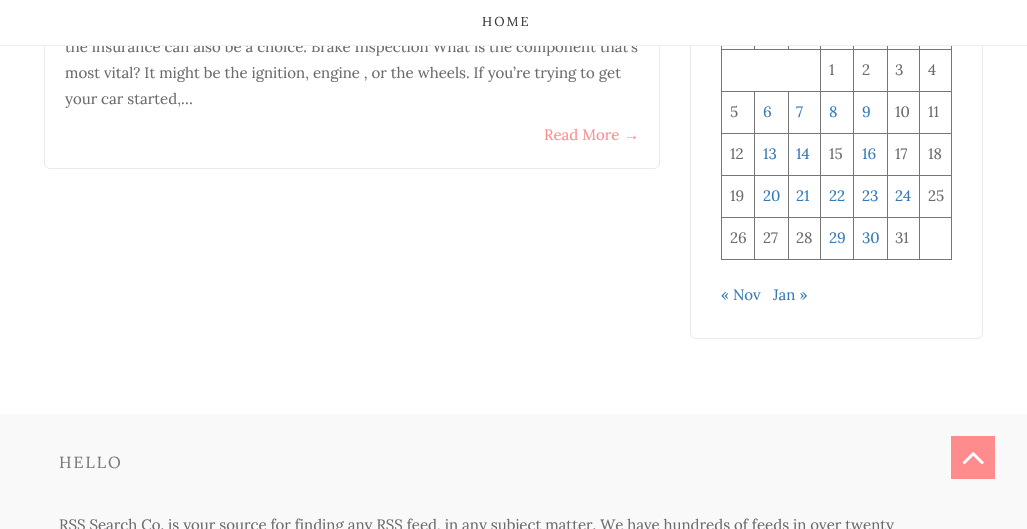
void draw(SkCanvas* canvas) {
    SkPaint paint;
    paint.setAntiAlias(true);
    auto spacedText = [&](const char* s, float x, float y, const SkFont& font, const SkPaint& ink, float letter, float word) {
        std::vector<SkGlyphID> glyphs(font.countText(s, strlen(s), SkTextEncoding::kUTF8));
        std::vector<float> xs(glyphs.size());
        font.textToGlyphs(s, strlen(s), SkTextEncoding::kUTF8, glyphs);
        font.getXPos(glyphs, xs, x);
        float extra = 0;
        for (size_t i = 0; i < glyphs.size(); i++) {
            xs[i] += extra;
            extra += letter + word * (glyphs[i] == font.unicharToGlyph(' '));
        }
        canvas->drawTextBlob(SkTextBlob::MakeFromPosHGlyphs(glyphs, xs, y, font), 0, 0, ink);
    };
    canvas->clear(0xFFFFFFFF);
    paint.setStyle(SkPaint::kStroke_Style);
    paint.setStrokeWidth(1);
    paint.setColor(0xFFE9E9E9);
    canvas->drawRoundRect(SkRect::MakeXYWH(44.5f, -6.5f, 615, 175), 5.5f, 5.5f, paint);
    SkFont font1(fontMgr->matchFamilyStyle("Lora", SkFontStyle::Normal()), 15);
    font1.setSubpixel(true);
    paint.setStyle(SkPaint::kFill_Style);
    paint.setColor(0xFF6A6C6F);
    canvas->drawString("the insurance can also be a choice. Brake Inspection What is the component that’s", 65, 52, font1, paint);
    paint.setStyle(SkPaint::kStroke_Style);
    paint.setColor(0xFFE9E9E9);
    canvas->drawRoundRect(SkRect::MakeXYWH(690.5f, -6.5f, 292, 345), 5.5f, 5.5f, paint);
    paint.setStyle(SkPaint::kFill_Style);
    paint.setColor(0xFFFFFFFF);
    canvas->drawRect(SkRect::MakeXYWH(44, 0, 939, 45), paint);
    paint.setColor(0xFFEEEEEE);
    canvas->drawRect(SkRect::MakeXYWH(0, 45, 1027, 1), paint);
    SkFont font2(fontMgr->matchFamilyStyle("Lora", SkFontStyle::Normal()), 13);
    font2.setSubpixel(true);
    paint.setColor(0xFF3A3B3D);
    spacedText("HOME", 482, 26, font2, paint, 2, 0);
    paint.setColor(0xFF6A6C6F);
    canvas->drawString("most vital? It might be the ignition, engine , or the wheels. If you’re trying to get", 65, 78, font1, paint);
    canvas->drawString("your car started,…", 65, 104, font1, paint);
    paint.setColor(0xFFFF8C8C);
    canvas->drawString("Read More", 544, 140, font1, paint);
    SkFont font3(fontMgr->matchFamilyStyle("Liberation Sans", SkFontStyle::Normal()), 15);
    font3.setSubpixel(true);
    canvas->drawString("→", 624, 140, font3, paint);
    paint.setColor(0xFF767676);
    canvas->drawRect(SkRect::MakeXYWH(919, 49, 33, 1), paint);
    canvas->drawRect(SkRect::MakeXYWH(919, 91, 33, 1), paint);
    canvas->drawRect(SkRect::MakeXYWH(919, 133, 33, 1), paint);
    canvas->drawRect(SkRect::MakeXYWH(919, 175, 33, 1), paint);
    canvas->drawRect(SkRect::MakeXYWH(919, 217, 33, 1), paint);
    canvas->drawRect(SkRect::MakeXYWH(951, 217, 1, 43), paint);
    canvas->drawRect(SkRect::MakeXYWH(919, 259, 33, 1), paint);
    canvas->drawRect(SkRect::MakeXYWH(919, 217, 1, 43), paint);
    canvas->drawRect(SkRect::MakeXYWH(887, 217, 33, 1), paint);
    canvas->drawRect(SkRect::MakeXYWH(919, 175, 1, 43), paint);
    canvas->drawRect(SkRect::MakeXYWH(887, 175, 33, 1), paint);
    canvas->drawRect(SkRect::MakeXYWH(919, 133, 1, 43), paint);
    canvas->drawRect(SkRect::MakeXYWH(887, 133, 33, 1), paint);
    canvas->drawRect(SkRect::MakeXYWH(919, 91, 1, 43), paint);
    canvas->drawRect(SkRect::MakeXYWH(887, 91, 33, 1), paint);
    canvas->drawRect(SkRect::MakeXYWH(919, 49, 1, 43), paint);
    canvas->drawRect(SkRect::MakeXYWH(887, 49, 33, 1), paint);
    canvas->drawRect(SkRect::MakeXYWH(887, 259, 33, 1), paint);
    canvas->drawRect(SkRect::MakeXYWH(887, 217, 1, 43), paint);
    canvas->drawRect(SkRect::MakeXYWH(853, 217, 35, 1), paint);
    canvas->drawRect(SkRect::MakeXYWH(887, 175, 1, 43), paint);
    canvas->drawRect(SkRect::MakeXYWH(853, 175, 35, 1), paint);
    canvas->drawRect(SkRect::MakeXYWH(887, 133, 1, 43), paint);
    canvas->drawRect(SkRect::MakeXYWH(853, 133, 35, 1), paint);
    canvas->drawRect(SkRect::MakeXYWH(887, 91, 1, 43), paint);
    canvas->drawRect(SkRect::MakeXYWH(853, 91, 35, 1), paint);
    canvas->drawRect(SkRect::MakeXYWH(887, 49, 1, 43), paint);
    canvas->drawRect(SkRect::MakeXYWH(853, 49, 35, 1), paint);
    canvas->drawRect(SkRect::MakeXYWH(853, 259, 35, 1), paint);
    canvas->drawRect(SkRect::MakeXYWH(853, 217, 1, 43), paint);
    canvas->drawRect(SkRect::MakeXYWH(820, 217, 34, 1), paint);
    canvas->drawRect(SkRect::MakeXYWH(853, 175, 1, 43), paint);
    canvas->drawRect(SkRect::MakeXYWH(820, 175, 34, 1), paint);
    canvas->drawRect(SkRect::MakeXYWH(853, 133, 1, 43), paint);
    canvas->drawRect(SkRect::MakeXYWH(820, 133, 34, 1), paint);
    canvas->drawRect(SkRect::MakeXYWH(853, 91, 1, 43), paint);
    canvas->drawRect(SkRect::MakeXYWH(820, 91, 34, 1), paint);
    canvas->drawRect(SkRect::MakeXYWH(853, 49, 1, 43), paint);
    canvas->drawRect(SkRect::MakeXYWH(820, 49, 34, 1), paint);
    canvas->drawRect(SkRect::MakeXYWH(820, 259, 34, 1), paint);
    canvas->drawRect(SkRect::MakeXYWH(820, 217, 1, 43), paint);
    canvas->drawRect(SkRect::MakeXYWH(788, 217, 33, 1), paint);
    canvas->drawRect(SkRect::MakeXYWH(820, 175, 1, 43), paint);
    canvas->drawRect(SkRect::MakeXYWH(788, 175, 33, 1), paint);
    canvas->drawRect(SkRect::MakeXYWH(820, 133, 1, 43), paint);
    canvas->drawRect(SkRect::MakeXYWH(788, 133, 33, 1), paint);
    canvas->drawRect(SkRect::MakeXYWH(820, 91, 1, 43), paint);
    canvas->drawRect(SkRect::MakeXYWH(788, 91, 33, 1), paint);
    canvas->drawRect(SkRect::MakeXYWH(820, 49, 1, 43), paint);
    canvas->drawRect(SkRect::MakeXYWH(721, 49, 100, 1), paint);
    canvas->drawRect(SkRect::MakeXYWH(754, 46, 1, 4), paint);
    canvas->drawRect(SkRect::MakeXYWH(788, 46, 1, 4), paint);
    canvas->drawRect(SkRect::MakeXYWH(820, 46, 1, 4), paint);
    canvas->drawRect(SkRect::MakeXYWH(853, 46, 1, 4), paint);
    canvas->drawRect(SkRect::MakeXYWH(887, 46, 1, 4), paint);
    canvas->drawRect(SkRect::MakeXYWH(919, 46, 1, 4), paint);
    canvas->drawRect(SkRect::MakeXYWH(788, 259, 33, 1), paint);
    canvas->drawRect(SkRect::MakeXYWH(788, 217, 1, 43), paint);
    canvas->drawRect(SkRect::MakeXYWH(754, 217, 35, 1), paint);
    canvas->drawRect(SkRect::MakeXYWH(788, 175, 1, 43), paint);
    canvas->drawRect(SkRect::MakeXYWH(754, 175, 35, 1), paint);
    canvas->drawRect(SkRect::MakeXYWH(788, 133, 1, 43), paint);
    canvas->drawRect(SkRect::MakeXYWH(754, 133, 35, 1), paint);
    canvas->drawRect(SkRect::MakeXYWH(788, 91, 1, 43), paint);
    canvas->drawRect(SkRect::MakeXYWH(754, 91, 35, 1), paint);
    canvas->drawRect(SkRect::MakeXYWH(754, 259, 35, 1), paint);
    canvas->drawRect(SkRect::MakeXYWH(754, 217, 1, 43), paint);
    canvas->drawRect(SkRect::MakeXYWH(721, 217, 34, 1), paint);
    canvas->drawRect(SkRect::MakeXYWH(754, 175, 1, 43), paint);
    canvas->drawRect(SkRect::MakeXYWH(721, 175, 34, 1), paint);
    canvas->drawRect(SkRect::MakeXYWH(754, 133, 1, 43), paint);
    canvas->drawRect(SkRect::MakeXYWH(721, 133, 34, 1), paint);
    canvas->drawRect(SkRect::MakeXYWH(754, 91, 1, 43), paint);
    canvas->drawRect(SkRect::MakeXYWH(721, 91, 34, 1), paint);
    canvas->drawRect(SkRect::MakeXYWH(721, 259, 34, 1), paint);
    canvas->drawRect(SkRect::MakeXYWH(721, 217, 1, 43), paint);
    canvas->drawRect(SkRect::MakeXYWH(721, 175, 1, 43), paint);
    canvas->drawRect(SkRect::MakeXYWH(721, 133, 1, 43), paint);
    canvas->drawRect(SkRect::MakeXYWH(721, 91, 1, 43), paint);
    canvas->drawRect(SkRect::MakeXYWH(721, 46, 1, 46), paint);
    paint.setColor(0xFF6A6C6F);
    canvas->drawString("1", 829, 75, font1, paint);
    canvas->drawString("2", 862, 75, font1, paint);
    canvas->drawString("3", 895, 75, font1, paint);
    paint.setColor(0xFF767676);
    canvas->drawRect(SkRect::MakeXYWH(951, 175, 1, 43), paint);
    canvas->drawRect(SkRect::MakeXYWH(951, 133, 1, 43), paint);
    canvas->drawRect(SkRect::MakeXYWH(951, 91, 1, 43), paint);
    canvas->drawRect(SkRect::MakeXYWH(951, 46, 1, 46), paint);
    paint.setColor(0xFF6A6C6F);
    canvas->drawString("4", 928, 75, font1, paint);
    canvas->drawString("5", 730, 117, font1, paint);
    paint.setColor(0xFF337AB7);
    canvas->drawString("6", 763, 117, font1, paint);
    canvas->drawString("7", 796, 117, font1, paint);
    canvas->drawString("8", 829, 117, font1, paint);
    canvas->drawString("9", 862, 117, font1, paint);
    paint.setColor(0xFF6A6C6F);
    canvas->drawString("10", 895, 117, font1, paint);
    canvas->drawString("11", 928, 117, font1, paint);
    canvas->drawString("12", 730, 159, font1, paint);
    paint.setColor(0xFF337AB7);
    canvas->drawString("13", 763, 159, font1, paint);
    canvas->drawString("14", 796, 159, font1, paint);
    paint.setColor(0xFF6A6C6F);
    canvas->drawString("15", 829, 159, font1, paint);
    paint.setColor(0xFF337AB7);
    canvas->drawString("16", 862, 159, font1, paint);
    paint.setColor(0xFF6A6C6F);
    canvas->drawString("17", 895, 159, font1, paint);
    canvas->drawString("18", 928, 159, font1, paint);
    canvas->drawString("19", 730, 201, font1, paint);
    paint.setColor(0xFF337AB7);
    canvas->drawString("20", 763, 201, font1, paint);
    canvas->drawString("21", 796, 201, font1, paint);
    canvas->drawString("22", 829, 201, font1, paint);
    canvas->drawString("23", 862, 201, font1, paint);
    canvas->drawString("24", 895, 201, font1, paint);
    paint.setColor(0xFF6A6C6F);
    canvas->drawString("25", 928, 201, font1, paint);
    canvas->drawString("26", 730, 243, font1, paint);
    canvas->drawString("27", 763, 243, font1, paint);
    canvas->drawString("28", 796, 243, font1, paint);
    paint.setColor(0xFF337AB7);
    canvas->drawString("29", 829, 243, font1, paint);
    canvas->drawString("30", 862, 243, font1, paint);
    paint.setColor(0xFF6A6C6F);
    canvas->drawString("31", 895, 243, font1, paint);
    paint.setColor(0xFF337AB7);
    canvas->drawString("« Nov", 721, 300, font1, paint);
    canvas->drawString("Jan »", 773, 300, font1, paint);
    paint.setColor(0xFFF9F9F9);
    canvas->drawRect(SkRect::MakeXYWH(0, 414, 1027, 115), paint);
    SkFont font4(fontMgr->matchFamilyStyle("Lora", SkFontStyle::Normal()), 16);
    font4.setSubpixel(true);
    paint.setColor(0xFF787878);
    spacedText("HELLO", 59, 468, font4, paint, 2, 0);
    paint.setColor(0xFF6A6C6F);
    canvas->drawString("RSS Search Co. is your source for finding any RSS feed, in any subject matter. We have hundreds of feeds in over twenty", 59, 530, font1, paint);
    paint.setColor(0xFFFF8C8C);
    canvas->drawRect(SkRect::MakeXYWH(951, 436, 44, 43), paint);
    canvas->drawImageRect(SkImages::DeferredFromEncodedData(SkData::MakeFromFileName("img1.png")), SkRect::MakeXYWH(962, 452, 22, 13), SkSamplingOptions());
}
